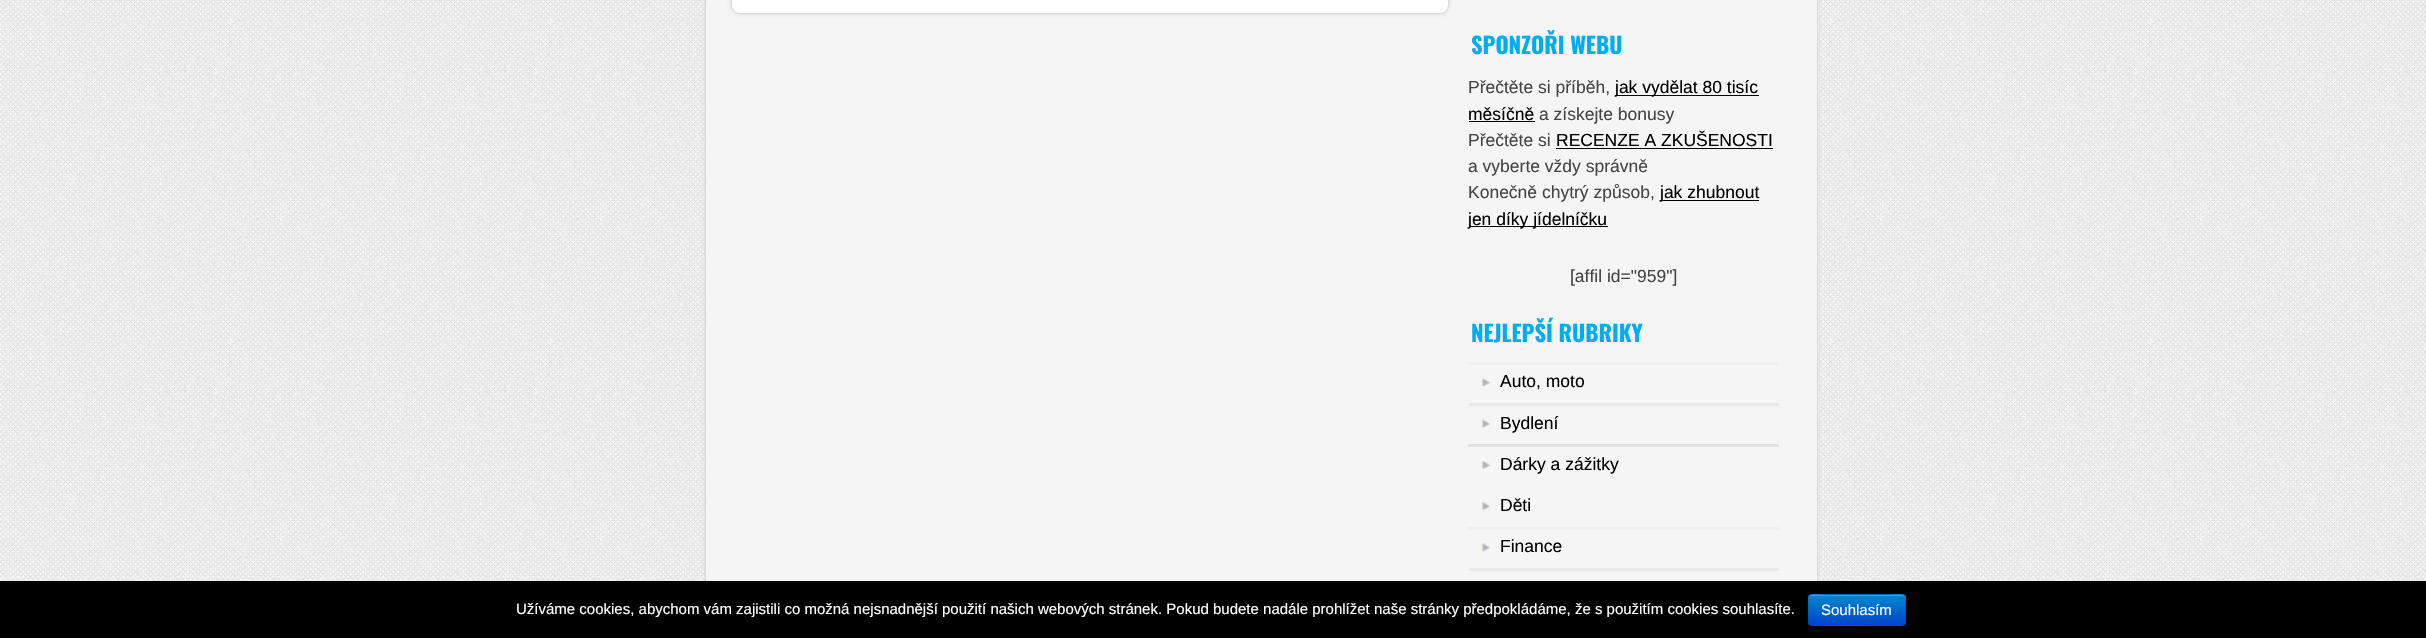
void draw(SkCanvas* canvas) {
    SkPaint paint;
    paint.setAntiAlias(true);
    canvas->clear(0xFFFFFFFF);
    canvas->drawImageRect(SkImages::DeferredFromEncodedData(SkData::MakeFromFileName("img1.png")), SkRect::MakeXYWH(0, 0, 2426, 581), SkSamplingOptions());
    paint.setColor(0xFFDADADA);
    paint.setMaskFilter(SkMaskFilter::MakeBlur(kNormal_SkBlurStyle, 2));
    canvas->drawRoundRect(SkRect::MakeXYWH(705, -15, 1113, 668), 9, 9, paint);
    paint.setMaskFilter(nullptr);
    paint.setColor(0xFFF5F5F5);
    canvas->drawRect(SkRect::MakeXYWH(706, 0, 1111, 581), paint);
    paint.setStyle(SkPaint::kStroke_Style);
    paint.setStrokeWidth(1);
    paint.setColor(0xFFDADADA);
    canvas->drawRect(SkRect::MakeXYWH(705.5f, -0.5f, 1112, 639), paint);
    paint.setStyle(SkPaint::kFill_Style);
    paint.setMaskFilter(SkMaskFilter::MakeBlur(kNormal_SkBlurStyle, 2));
    canvas->drawRoundRect(SkRect::MakeXYWH(731, -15, 718, 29), 9, 9, paint);
    paint.setMaskFilter(nullptr);
    paint.setColor(0xFFFFFFFF);
    canvas->drawRoundRect(SkRect::MakeXYWH(731.5f, -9.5f, 717, 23), 8.5f, 8.5f, paint);
    paint.setStyle(SkPaint::kStroke_Style);
    paint.setColor(0xFFDADADA);
    canvas->drawRoundRect(SkRect::MakeXYWH(731.5f, -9.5f, 717, 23), 8.5f, 8.5f, paint);
    SkFont font1(fontMgr->matchFamilyStyle("Oswald", SkFontStyle::Bold()), 22.5f);
    font1.setSubpixel(true);
    paint.setStyle(SkPaint::kFill_Style);
    paint.setColor(0xFF00AEEF);
    canvas->drawString("SPONZOŘI WEBU", 1471, 54, font1, paint);
    SkFont font2(fontMgr->matchFamilyStyle("Liberation Sans", SkFontStyle::Normal()), 17.5f);
    font2.setSubpixel(true);
    paint.setColor(0xFF444444);
    canvas->drawString("Přečtěte si příběh,", 1468, 93, font2, paint);
    paint.setColor(0xFF000000);
    canvas->drawRect(SkRect::MakeXYWH(1615, 95, 144, 1), paint);
    canvas->drawString("jak vydělat 80 tisíc", 1615, 93, font2, paint);
    canvas->drawString("měsíčně", 1468, 120, font2, paint);
    canvas->drawRect(SkRect::MakeXYWH(1469, 121, 66, 1), paint);
    paint.setColor(0xFF444444);
    canvas->drawString("a získejte bonusy", 1539, 120, font2, paint);
    canvas->drawString("Přečtěte si", 1468, 146, font2, paint);
    paint.setColor(0xFF000000);
    canvas->drawString("RECENZE A ZKUŠENOSTI", 1556, 146, font2, paint);
    canvas->drawRect(SkRect::MakeXYWH(1556, 148, 217, 1), paint);
    paint.setColor(0xFF444444);
    canvas->drawString("a vyberte vždy správně", 1468, 172, font2, paint);
    canvas->drawString("Konečně chytrý způsob,", 1468, 198, font2, paint);
    paint.setColor(0xFF000000);
    canvas->drawRect(SkRect::MakeXYWH(1660, 200, 99, 1), paint);
    canvas->drawString("jak zhubnout", 1660, 198, font2, paint);
    canvas->drawRect(SkRect::MakeXYWH(1469, 226, 139, 1), paint);
    canvas->drawString("jen díky jídelníčku", 1468, 225, font2, paint);
    paint.setColor(0xFF444444);
    canvas->drawString("[affil id=\"959\"]", 1570, 282, font2, paint);
    paint.setColor(0xFF00AEEF);
    canvas->drawString("NEJLEPŠÍ RUBRIKY", 1471, 342, font1, paint);
    paint.setColor(0xFFEFEFEF);
    canvas->drawRect(SkRect::MakeXYWH(1468, 362, 311, 3), paint);
    canvas->drawImageRect(SkImages::DeferredFromEncodedData(SkData::MakeFromFileName("img2.png")), SkRect::MakeXYWH(1481, 378, 10, 9), SkSamplingOptions());
    paint.setColor(0xFF000000);
    canvas->drawString("Auto, moto", 1500, 387, font2, paint);
    paint.setColor(0xFFE9E9E9);
    canvas->drawRect(SkRect::MakeXYWH(1469, 403, 310, 3), paint);
    canvas->drawImageRect(SkImages::DeferredFromEncodedData(SkData::MakeFromFileName("img3.png")), SkRect::MakeXYWH(1481, 419, 10, 9), SkSamplingOptions());
    paint.setColor(0xFF000000);
    canvas->drawString("Bydlení", 1500, 429, font2, paint);
    paint.setColor(0xFFE2E2E2);
    canvas->drawRect(SkRect::MakeXYWH(1468, 444, 311, 3), paint);
    canvas->drawImageRect(SkImages::DeferredFromEncodedData(SkData::MakeFromFileName("img4.png")), SkRect::MakeXYWH(1481, 461, 10, 8), SkSamplingOptions());
    paint.setColor(0xFF000000);
    canvas->drawString("Dárky a zážitky", 1500, 470, font2, paint);
    canvas->drawImageRect(SkImages::DeferredFromEncodedData(SkData::MakeFromFileName("img5.png")), SkRect::MakeXYWH(1481, 502, 10, 8), SkSamplingOptions());
    canvas->drawString("Děti", 1500, 511, font2, paint);
    paint.setColor(0xFFEFEFEF);
    canvas->drawRect(SkRect::MakeXYWH(1468, 527, 311, 3), paint);
    canvas->drawImageRect(SkImages::DeferredFromEncodedData(SkData::MakeFromFileName("img2.png")), SkRect::MakeXYWH(1481, 543, 10, 9), SkSamplingOptions());
    paint.setColor(0xFF000000);
    canvas->drawString("Finance", 1500, 552, font2, paint);
    paint.setColor(0xFFE9E9E9);
    canvas->drawRect(SkRect::MakeXYWH(1469, 568, 310, 3), paint);
    paint.setColor(0xFF000000);
    canvas->drawRect(SkRect::MakeXYWH(0, 581, 2426, 57), paint);
    SkFont font3(fontMgr->matchFamilyStyle("Liberation Sans", SkFontStyle::Normal()), 15);
    font3.setSubpixel(true);
    paint.setColor(0xFFFFFFFF);
    canvas->drawString("Užíváme cookies, abychom vám zajistili co možná nejsnadnější použití našich webových stránek. Pokud budete nadále prohlížet naše stránky předpokládáme, že s použitím cookies souhlasíte.", 516, 614, font3, paint);
    paint.setColor(0xFF006DCC);
    canvas->drawRoundRect(SkRect::MakeXYWH(1808, 594, 98, 32), 4, 4, paint);
    canvas->save();
    canvas->clipPath(SkPathBuilder().moveTo(1812, 594).lineTo(1902, 594).cubicTo(1904, 594, 1906, 596, 1906, 598).lineTo(1906, 622).cubicTo(1906, 624, 1904, 626, 1902, 626).lineTo(1812, 626).cubicTo(1810, 626, 1808, 624, 1808, 622).lineTo(1808, 598).cubicTo(1808, 596, 1810, 594, 1812, 594).close().detach(), true);
    {
        const SkColor colors[] = {0xFF0088CC, 0xFF0044CC};
        const float stops[] = {0, 1};
        const SkPoint ends[] = {{1857, 595}, {1857, 625}};
        paint.setShader(SkGradientShader::MakeLinear(ends, colors, stops, 2, SkTileMode::kClamp));
        paint.setAlpha(255);
    }
    canvas->drawRect(SkRect::MakeXYWH(1808, 595, 98, 30), paint);
    canvas->restore();
    paint.setShader(nullptr);
    paint.setColor(0x33FFFFFF);
    canvas->drawPath(SkPathBuilder().moveTo(1811, 596).lineTo(1902, 596).cubicTo(1904, 596, 1905, 597, 1905, 599).cubicTo(1905, 591, 1893, 595, 1887, 595).lineTo(1827, 595).cubicTo(1821, 595, 1809, 591, 1809, 599).cubicTo(1809, 597, 1810, 596, 1811, 596).close().detach(), paint);
    paint.setStyle(SkPaint::kStroke_Style);
    paint.setStrokeWidth(1.2f);
    paint.setColor(0x40000000);
    canvas->drawPath(SkPathBuilder().moveTo(1904.5f, 624.5f).lineTo(1902.5f, 625.5f).lineTo(1887.5f, 625.5f).cubicTo(1879, 625.5f, 1811.5f, 626.5f, 1809.5f, 625).lineTo(1809, 624.5f).detach(), paint);
    paint.setColor(0x1A000000);
    canvas->drawPath(SkPathBuilder().moveTo(1809, 624.5f).cubicTo(1807, 622.5f, 1808, 613, 1808, 610).cubicTo(1808, 590.5f, 1805.5f, 594.5f, 1826.5f, 594.5f).lineTo(1887.5f, 594.5f).cubicTo(1910, 594.5f, 1905.5f, 591, 1905.5f, 614).cubicTo(1905.5f, 616.5f, 1907, 622.5f, 1904.5f, 624.5f).detach(), paint);
    paint.setStyle(SkPaint::kFill_Style);
    paint.setColor(0xFFFFFFFF);
    canvas->drawString("Souhlasím", 1821, 615, font3, paint);
}
